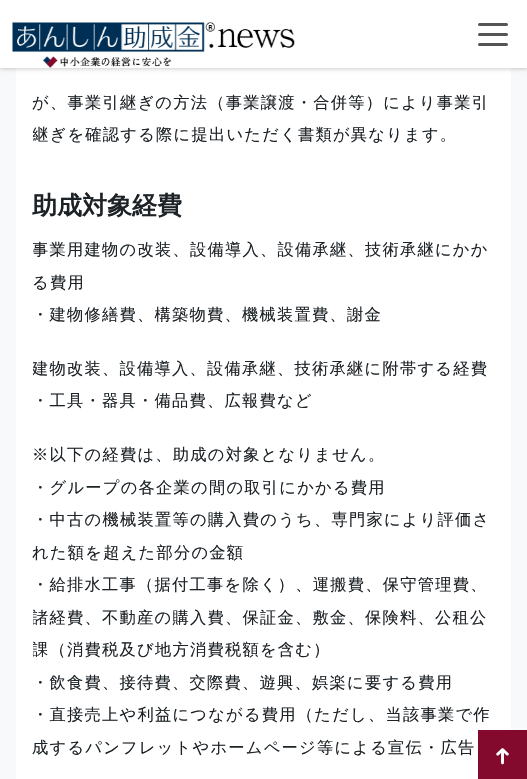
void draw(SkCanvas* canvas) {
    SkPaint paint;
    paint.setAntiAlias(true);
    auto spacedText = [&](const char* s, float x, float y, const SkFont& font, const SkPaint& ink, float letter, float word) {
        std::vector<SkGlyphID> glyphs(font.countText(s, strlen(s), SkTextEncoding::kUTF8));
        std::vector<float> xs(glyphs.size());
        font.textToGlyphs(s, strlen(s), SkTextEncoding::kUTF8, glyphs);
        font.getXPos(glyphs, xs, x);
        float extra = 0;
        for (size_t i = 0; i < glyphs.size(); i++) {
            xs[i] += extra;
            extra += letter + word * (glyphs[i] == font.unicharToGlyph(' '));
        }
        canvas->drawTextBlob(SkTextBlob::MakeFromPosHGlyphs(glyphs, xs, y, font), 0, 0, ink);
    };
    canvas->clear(0xFFF8F9FA);
    paint.setColor(0xFFFFFFFF);
    canvas->drawRect(SkRect::MakeXYWH(16, 68, 495, 711), paint);
    paint.setColor(0x33000000);
    paint.setMaskFilter(SkMaskFilter::MakeBlur(kNormal_SkBlurStyle, 2));
    canvas->drawRect(SkRect::MakeXYWH(0, 1, 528, 68), paint);
    paint.setMaskFilter(nullptr);
    paint.setColor(0xFFFFFFFF);
    canvas->drawRect(SkRect::MakeXYWH(0, 0, 527, 68), paint);
    canvas->drawImageRect(SkImages::DeferredFromEncodedData(SkData::MakeFromFileName("img1.png")), SkRect::MakeXYWH(12, 22, 283, 46), SkSamplingOptions());
    paint.setColor(0xFF555555);
    canvas->drawRoundRect(SkRect::MakeXYWH(478, 23, 30, 3), 1.5f, 1.5f, paint);
    canvas->drawRoundRect(SkRect::MakeXYWH(478, 33, 30, 3), 1.5f, 1.5f, paint);
    canvas->drawRoundRect(SkRect::MakeXYWH(478, 43, 30, 3), 1.5f, 1.5f, paint);
    SkFont font1(fontMgr->matchFamilyStyle("WenQuanYi Zen Hei", SkFontStyle(500, SkFontStyle::kNormal_Width, SkFontStyle::kUpright_Slant)), 16.25f);
    font1.setSubpixel(true);
    paint.setColor(0xFF1C2226);
    spacedText("が、事業引継ぎの方法（事業譲渡・合併等）により事業引", 32, 108, font1, paint, 1.25f, 0);
    canvas->save();
    canvas->clipRect(SkRect::MakeXYWH(33, 0, 462, 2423));
    spacedText("継ぎを確認する際に提出いただく書類が異なります。", 32, 140, font1, paint, 1.25f, 0);
    canvas->restore();
    SkFont font2(fontMgr->matchFamilyStyle("WenQuanYi Zen Hei", SkFontStyle::Bold()), 25);
    font2.setSubpixel(true);
    canvas->drawString("助成対象経費", 32, 214, font2, paint);
    canvas->save();
    canvas->clipRect(SkRect::MakeXYWH(33, 0, 462, 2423));
    spacedText("事業用建物の改装、設備導入、設備承継、技術承継にかか", 32, 255, font1, paint, 1.25f, 0);
    canvas->restore();
    spacedText("る費用", 32, 288, font1, paint, 1.25f, 0);
    spacedText("・建物修繕費、構築物費、機械装置費、謝金", 32, 320, font1, paint, 1.25f, 0);
    canvas->save();
    canvas->clipRect(SkRect::MakeXYWH(33, 0, 462, 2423));
    spacedText("建物改装、設備導入、設備承継、技術承継に附帯する経費", 32, 374, font1, paint, 1.25f, 0);
    canvas->restore();
    spacedText("・工具・器具・備品費、広報費など", 32, 406, font1, paint, 1.25f, 0);
    spacedText("※以下の経費は、助成の対象となりません。", 32, 460, font1, paint, 1.25f, 0);
    spacedText("・グループの各企業の間の取引にかかる費用", 32, 493, font1, paint, 1.25f, 0);
    spacedText("・中古の機械装置等の購入費のうち、専門家により評価さ", 32, 525, font1, paint, 1.25f, 0);
    spacedText("れた額を超えた部分の金額", 32, 558, font1, paint, 1.25f, 0);
    spacedText("・給排水工事（据付工事を除く）、運搬費、保守管理費、", 32, 590, font1, paint, 1.25f, 0);
    canvas->save();
    canvas->clipRect(SkRect::MakeXYWH(33, 0, 462, 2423));
    spacedText("諸経費、不動産の購入費、保証金、敷金、保険料、公租公", 32, 623, font1, paint, 1.25f, 0);
    spacedText("課（消費税及び地方消費税額を含む）", 32, 655, font1, paint, 1.25f, 0);
    canvas->restore();
    spacedText("・飲食費、接待費、交際費、遊興、娯楽に要する費用", 32, 688, font1, paint, 1.25f, 0);
    spacedText("・直接売上や利益につながる費用（ただし、当該事業で作", 32, 720, font1, paint, 1.25f, 0);
    spacedText("成するパンフレットやホームページ等による宣伝・広告", 32, 753, font1, paint, 1.25f, 0);
    paint.setColor(0xFF840A2D);
    canvas->drawRect(SkRect::MakeXYWH(478, 730, 49, 49), paint);
    canvas->drawImageRect(SkImages::DeferredFromEncodedData(SkData::MakeFromFileName("img2.png")), SkRect::MakeXYWH(496, 748, 13, 17), SkSamplingOptions());
}
